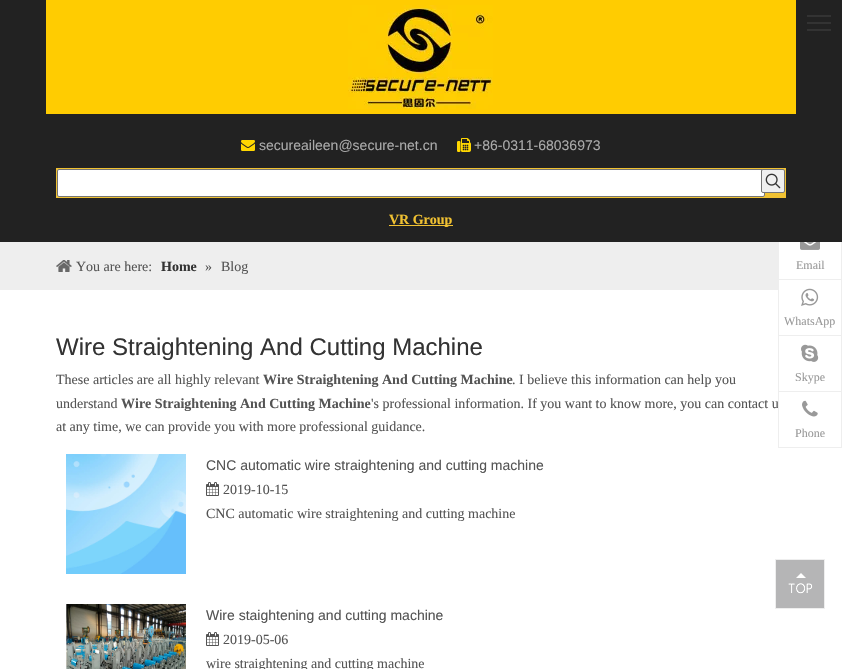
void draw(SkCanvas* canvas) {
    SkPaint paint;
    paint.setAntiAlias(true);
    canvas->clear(0xFFFFFFFF);
    paint.setColor(0xFF222222);
    canvas->drawRect(SkRect::MakeXYWH(0, 0, 842, 242), paint);
    paint.setColor(0xFFFFCC01);
    canvas->drawRect(SkRect::MakeXYWH(46, 0, 750, 114), paint);
    canvas->drawImageRect(SkImages::DeferredFromEncodedData(SkData::MakeFromFileName("img1.png")), SkRect::MakeXYWH(348, 5, 145, 104), SkSamplingOptions());
    paint.setColor(0xFF333333);
    canvas->drawRect(SkRect::MakeXYWH(807, 15, 24, 2), paint);
    canvas->drawRect(SkRect::MakeXYWH(807, 22, 24, 2), paint);
    canvas->drawRect(SkRect::MakeXYWH(807, 29, 24, 2), paint);
    canvas->drawImageRect(SkImages::DeferredFromEncodedData(SkData::MakeFromFileName("img2.png")), SkRect::MakeXYWH(241, 140, 14, 11), SkSamplingOptions());
    SkFont font1(fontMgr->matchFamilyStyle("Liberation Sans", SkFontStyle::Normal()), 14);
    font1.setSubpixel(true);
    paint.setColor(0xFFAAAAAA);
    canvas->drawString("secureaileen@secure-net.cn", 259, 150, font1, paint);
    canvas->drawImageRect(SkImages::DeferredFromEncodedData(SkData::MakeFromFileName("img3.png")), SkRect::MakeXYWH(457, 138, 14, 14), SkSamplingOptions());
    canvas->drawString("+86-0311-68036973", 474, 150, font1, paint);
    paint.setColor(0xFFF1C232);
    canvas->drawRect(SkRect::MakeXYWH(56, 168, 730, 30), paint);
    paint.setColor(0xFFFFFFFF);
    canvas->drawRoundRect(SkRect::MakeXYWH(57.5f, 169.5f, 707, 27), 1.5f, 1.5f, paint);
    paint.setStyle(SkPaint::kStroke_Style);
    paint.setStrokeWidth(1);
    paint.setColor(0xFF767676);
    canvas->drawRoundRect(SkRect::MakeXYWH(57.5f, 169.5f, 707, 27), 1.5f, 1.5f, paint);
    paint.setStyle(SkPaint::kFill_Style);
    paint.setColor(0xFFEFEFEF);
    canvas->drawRoundRect(SkRect::MakeXYWH(761.5f, 169.5f, 23, 23), 1.5f, 1.5f, paint);
    paint.setStyle(SkPaint::kStroke_Style);
    paint.setColor(0xFF767676);
    canvas->drawRoundRect(SkRect::MakeXYWH(761.5f, 169.5f, 23, 23), 1.5f, 1.5f, paint);
    canvas->drawImageRect(SkImages::DeferredFromEncodedData(SkData::MakeFromFileName("img4.png")), SkRect::MakeXYWH(765, 173, 16, 16), SkSamplingOptions());
    paint.setStyle(SkPaint::kFill_Style);
    paint.setColor(0xFFF1C232);
    canvas->drawRect(SkRect::MakeXYWH(389, 225, 64, 1), paint);
    SkFont font2(fontMgr->matchFamilyStyle("Liberation Serif", SkFontStyle::Bold()), 14);
    font2.setSubpixel(true);
    canvas->drawString("VR Group", 389, 224, font2, paint);
    paint.setColor(0xFFEEEEEE);
    canvas->drawRect(SkRect::MakeXYWH(0, 242, 778, 48), paint);
    canvas->drawImageRect(SkImages::DeferredFromEncodedData(SkData::MakeFromFileName("img5.png")), SkRect::MakeXYWH(56, 260, 16, 12), SkSamplingOptions());
    SkFont font3(fontMgr->matchFamilyStyle("Liberation Serif", SkFontStyle::Normal()), 14);
    font3.setSubpixel(true);
    paint.setColor(0xFF545454);
    canvas->drawString("You are here:", 76, 271, font3, paint);
    paint.setColor(0xFF333333);
    canvas->drawString("Home", 161, 271, font2, paint);
    paint.setColor(0xFF545454);
    canvas->drawString("»", 205, 271, font3, paint);
    canvas->drawString("Blog", 221, 271, font3, paint);
    SkFont font4(fontMgr->matchFamilyStyle("Liberation Sans", SkFontStyle::Normal()), 24);
    font4.setSubpixel(true);
    paint.setColor(0xFF333333);
    canvas->drawString("Wire Straightening And Cutting Machine", 56, 355, font4, paint);
    paint.setColor(0xFF545454);
    canvas->drawString("These articles are all highly relevant", 56, 384, font3, paint);
    canvas->drawString("Wire Straightening And Cutting Machine", 263, 384, font2, paint);
    canvas->drawString(". I believe this information can help you", 512, 384, font3, paint);
    canvas->drawString("understand", 56, 408, font3, paint);
    canvas->drawString("Wire Straightening And Cutting Machine", 121, 408, font2, paint);
    canvas->drawString("'s professional information. If you want to know more, you can contact u", 371, 408, font3, paint);
    canvas->drawString("at any time, we can provide you with more professional guidance.", 56, 431, font3, paint);
    canvas->drawImageRect(SkImages::DeferredFromEncodedData(SkData::MakeFromFileName("img6.png")), SkRect::MakeXYWH(66, 454, 120, 120), SkSamplingOptions());
    canvas->drawString("CNC automatic wire straightening and cutting machine", 206, 470, font1, paint);
    canvas->drawImageRect(SkImages::DeferredFromEncodedData(SkData::MakeFromFileName("img7.png")), SkRect::MakeXYWH(206, 482, 13, 14), SkSamplingOptions());
    canvas->drawString("2019-10-15", 223, 494, font3, paint);
    canvas->drawString("CNC automatic wire straightening and cutting machine", 206, 518, font3, paint);
    canvas->drawImageRect(SkImages::DeferredFromEncodedData(SkData::MakeFromFileName("img8.png")), SkRect::MakeXYWH(66, 604, 120, 65), SkSamplingOptions());
    canvas->drawString("Wire staightening and cutting machine", 206, 620, font1, paint);
    canvas->drawImageRect(SkImages::DeferredFromEncodedData(SkData::MakeFromFileName("img7.png")), SkRect::MakeXYWH(206, 632, 13, 14), SkSamplingOptions());
    canvas->drawString("2019-05-06", 223, 644, font3, paint);
    canvas->drawString("wire straightening and cutting machine", 206, 668, font3, paint);
    paint.setColor(0xFFEEEEEE);
    canvas->drawRect(SkRect::MakeXYWH(841, 242, 1, 37), paint);
    canvas->drawRect(SkRect::MakeXYWH(778, 242, 1, 37), paint);
    canvas->drawImageRect(SkImages::DeferredFromEncodedData(SkData::MakeFromFileName("img9.png")), SkRect::MakeXYWH(800, 242, 20, 8), SkSamplingOptions());
    SkFont font5(fontMgr->matchFamilyStyle("Liberation Serif", SkFontStyle::Normal()), 12);
    font5.setSubpixel(true);
    paint.setColor(0xFF999999);
    canvas->drawString("Email", 796, 269, font5, paint);
    paint.setColor(0xFFEEEEEE);
    canvas->drawRect(SkRect::MakeXYWH(778, 279, 64, 1), paint);
    canvas->drawRect(SkRect::MakeXYWH(841, 279, 1, 56), paint);
    canvas->drawRect(SkRect::MakeXYWH(778, 279, 1, 56), paint);
    canvas->drawImageRect(SkImages::DeferredFromEncodedData(SkData::MakeFromFileName("img10.png")), SkRect::MakeXYWH(801, 288, 18, 18), SkSamplingOptions());
    paint.setColor(0xFF999999);
    canvas->drawString("WhatsApp", 784, 325, font5, paint);
    paint.setColor(0xFFEEEEEE);
    canvas->drawRect(SkRect::MakeXYWH(778, 335, 64, 1), paint);
    canvas->drawRect(SkRect::MakeXYWH(841, 335, 1, 56), paint);
    canvas->drawRect(SkRect::MakeXYWH(778, 335, 1, 56), paint);
    canvas->drawImageRect(SkImages::DeferredFromEncodedData(SkData::MakeFromFileName("img11.png")), SkRect::MakeXYWH(801, 344, 18, 18), SkSamplingOptions());
    paint.setColor(0xFF999999);
    canvas->drawString("Skype", 795, 381, font5, paint);
    paint.setStyle(SkPaint::kStroke_Style);
    paint.setColor(0xFFEEEEEE);
    canvas->drawRect(SkRect::MakeXYWH(778.5f, 391.5f, 63, 56), paint);
    canvas->drawImageRect(SkImages::DeferredFromEncodedData(SkData::MakeFromFileName("img12.png")), SkRect::MakeXYWH(802, 400, 16, 17), SkSamplingOptions());
    paint.setStyle(SkPaint::kFill_Style);
    paint.setColor(0xFF999999);
    canvas->drawString("Phone", 795, 437, font5, paint);
    canvas->drawImageRect(SkImages::DeferredFromEncodedData(SkData::MakeFromFileName("img13.png")), SkRect::MakeXYWH(775, 559, 50, 50), SkSamplingOptions());
}
